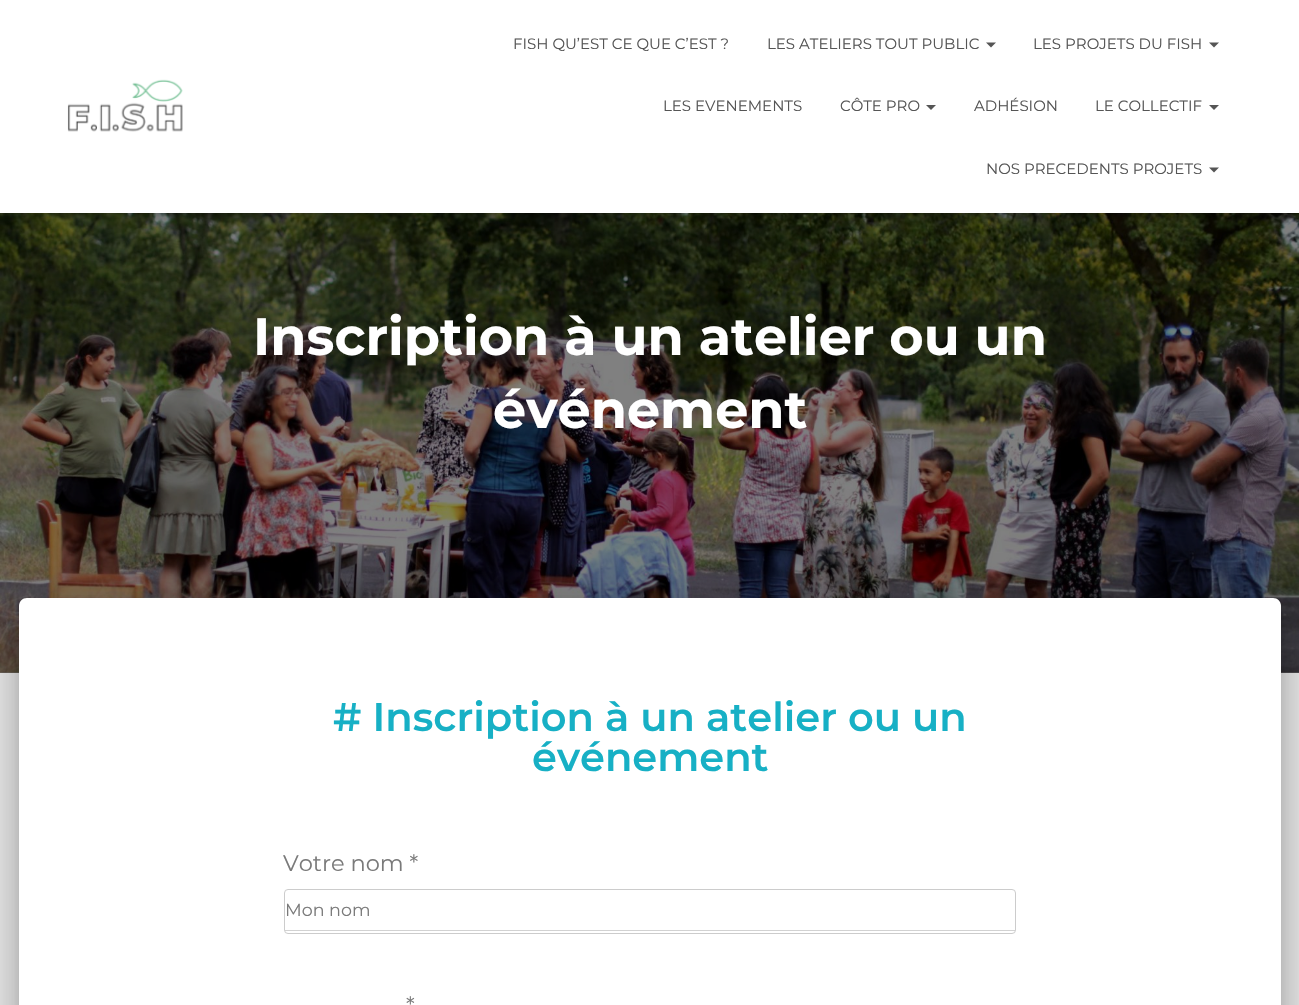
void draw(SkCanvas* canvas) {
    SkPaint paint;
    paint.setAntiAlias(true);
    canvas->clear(0xFFE5E5E5);
    paint.setColor(0xFF737373);
    canvas->drawRect(SkRect::MakeXYWH(0, 672, 1299, 1), paint);
    canvas->drawImageRect(SkImages::DeferredFromEncodedData(SkData::MakeFromFileName("img2.png")), SkRect::MakeXYWH(0, 213, 1299, 460), SkSamplingOptions());
    paint.setColor(0x1A000000);
    paint.setMaskFilter(SkMaskFilter::MakeBlur(kNormal_SkBlurStyle, 3));
    canvas->drawRect(SkRect::MakeXYWH(3, 8, 1295, 207), paint);
    paint.setMaskFilter(nullptr);
    paint.setColor(0x1F000000);
    paint.setMaskFilter(SkMaskFilter::MakeBlur(kNormal_SkBlurStyle, 6));
    canvas->drawRect(SkRect::MakeXYWH(0, 1, 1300, 213), paint);
    paint.setMaskFilter(nullptr);
    paint.setColor(0x6B000000);
    paint.setMaskFilter(SkMaskFilter::MakeBlur(kNormal_SkBlurStyle, 6));
    canvas->drawRect(SkRect::MakeXYWH(8, 9, 1285, 197), paint);
    paint.setMaskFilter(nullptr);
    paint.setColor(0xFFFFFFFF);
    canvas->drawRect(SkRect::MakeXYWH(0, 0, 1299, 213), paint);
    canvas->drawImageRect(SkImages::DeferredFromEncodedData(SkData::MakeFromFileName("img1.png")), SkRect::MakeXYWH(67, 79, 116, 53), SkSamplingOptions());
    SkFont font1(fontMgr->matchFamilyStyle("Montserrat", SkFontStyle::Normal()), 15);
    font1.setSubpixel(true);
    paint.setColor(0xFF555555);
    canvas->drawString("FISH QU’EST CE QUE C’EST ?", 513, 49, font1, paint);
    canvas->drawString("LES ATELIERS TOUT PUBLIC", 767, 49, font1, paint);
    canvas->drawPath(SkPathBuilder().moveTo(986, 42.5f).lineTo(996, 42.5f).lineTo(991, 47.5f).close().detach(), paint);
    canvas->drawString("LES PROJETS DU FISH", 1033, 49, font1, paint);
    canvas->drawPath(SkPathBuilder().moveTo(1209, 42.5f).lineTo(1219, 42.5f).lineTo(1214, 47.5f).close().detach(), paint);
    canvas->drawString("LES EVENEMENTS", 663, 111, font1, paint);
    canvas->drawString("CÔTE PRO", 840, 111, font1, paint);
    canvas->drawPath(SkPathBuilder().moveTo(926, 105).lineTo(936, 105).lineTo(931, 110).close().detach(), paint);
    canvas->drawString("ADHÉSION", 974, 111, font1, paint);
    canvas->drawString("LE COLLECTIF", 1095, 111, font1, paint);
    canvas->drawPath(SkPathBuilder().moveTo(1209, 105).lineTo(1219, 105).lineTo(1214, 110).close().detach(), paint);
    canvas->drawString("NOS PRECEDENTS PROJETS", 986, 174, font1, paint);
    canvas->drawPath(SkPathBuilder().moveTo(1209, 167.5f).lineTo(1219, 167.5f).lineTo(1214, 172.5f).close().detach(), paint);
    SkFont font2(fontMgr->matchFamilyStyle("Montserrat", SkFontStyle::Bold()), 52.5f);
    font2.setSubpixel(true);
    paint.setColor(0xFFFFFFFF);
    canvas->drawString("Inscription à un atelier ou un", 253, 355, font2, paint);
    canvas->drawString("événement", 493, 428, font2, paint);
    paint.setColor(0x33000000);
    paint.setMaskFilter(SkMaskFilter::MakeBlur(kNormal_SkBlurStyle, 6));
    canvas->drawRoundRect(SkRect::MakeXYWH(25, 614, 1250, 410), 1, 1, paint);
    paint.setMaskFilter(nullptr);
    paint.setColor(0x1F000000);
    paint.setMaskFilter(SkMaskFilter::MakeBlur(kNormal_SkBlurStyle, 19));
    canvas->drawRoundRect(SkRect::MakeXYWH(13, 599, 1275, 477), 14, 14, paint);
    paint.setMaskFilter(nullptr);
    paint.setColor(0x24000000);
    paint.setMaskFilter(SkMaskFilter::MakeBlur(kNormal_SkBlurStyle, 15));
    canvas->drawRoundRect(SkRect::MakeXYWH(16, 615, 1268, 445), 10, 10, paint);
    paint.setMaskFilter(nullptr);
    paint.setColor(0xFFFFFFFF);
    canvas->drawPath(SkPathBuilder().moveTo(27, 598).lineTo(1273, 598).cubicTo(1277.5f, 598, 1281, 601.5f, 1281, 606).lineTo(1281, 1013).lineTo(19, 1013).lineTo(19, 606).cubicTo(19, 601.5f, 22.5f, 598, 27, 598).close().detach(), paint);
    SkFont font3(fontMgr->matchFamilyStyle("Montserrat", SkFontStyle(600, SkFontStyle::kNormal_Width, SkFontStyle::kUpright_Slant)), 40);
    font3.setSubpixel(true);
    paint.setColor(0xFF17B0C5);
    canvas->drawString("# Inscription à un atelier ou un", 333, 731, font3, paint);
    canvas->drawString("événement", 532, 771, font3, paint);
    SkFont font4(fontMgr->matchFamilyStyle("Montserrat", SkFontStyle::Normal()), 22.5f);
    font4.setSubpixel(true);
    paint.setColor(0xFF7A7A7A);
    canvas->drawString("Votre nom *", 283, 871, font4, paint);
    paint.setColor(0xFFD2D2D2);
    canvas->drawRect(SkRect::MakeXYWH(285, 930, 730, 1), paint);
    paint.setStyle(SkPaint::kStroke_Style);
    paint.setStrokeWidth(1);
    paint.setColor(0xFFCCCCCC);
    canvas->drawRoundRect(SkRect::MakeXYWH(284.5f, 889.5f, 731, 44), 3.5f, 3.5f, paint);
    SkFont font5(fontMgr->matchFamilyStyle("Montserrat", SkFontStyle::Normal()), 17.5f);
    font5.setSubpixel(true);
    paint.setStyle(SkPaint::kFill_Style);
    paint.setColor(0xFF7A7A7A);
    canvas->drawString("Mon nom", 285, 916, font5, paint);
    canvas->drawString("*", 406, 1013, font4, paint);
}
